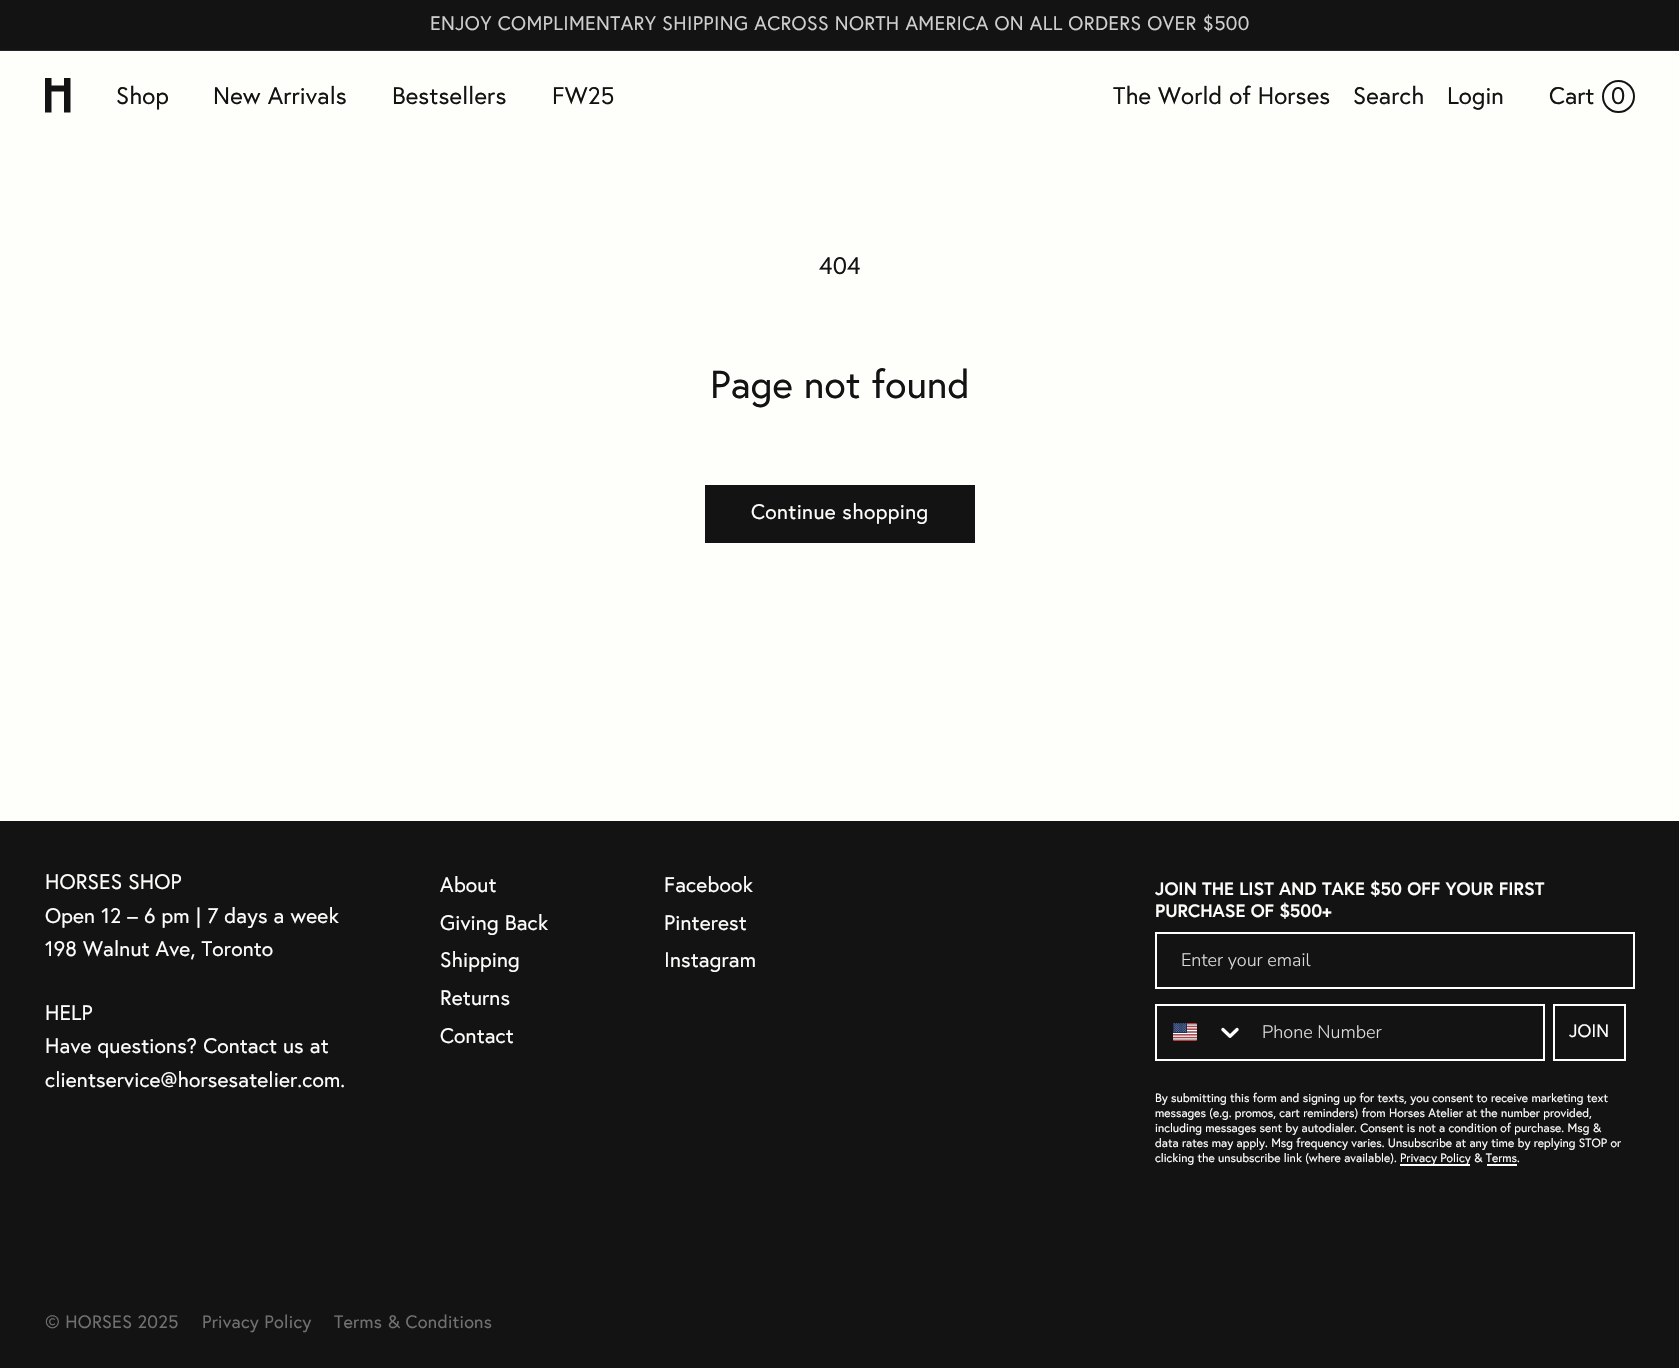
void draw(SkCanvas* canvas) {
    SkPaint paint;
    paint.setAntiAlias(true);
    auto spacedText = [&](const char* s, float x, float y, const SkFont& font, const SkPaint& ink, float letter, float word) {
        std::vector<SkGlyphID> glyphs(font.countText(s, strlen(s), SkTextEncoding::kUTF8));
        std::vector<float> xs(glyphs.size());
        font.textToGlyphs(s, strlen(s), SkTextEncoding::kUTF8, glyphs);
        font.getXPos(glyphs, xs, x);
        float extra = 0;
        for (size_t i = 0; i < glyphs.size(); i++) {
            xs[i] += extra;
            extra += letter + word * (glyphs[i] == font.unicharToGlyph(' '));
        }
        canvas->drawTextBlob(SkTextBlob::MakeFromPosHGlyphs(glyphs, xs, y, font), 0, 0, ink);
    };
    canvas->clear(0xFFFEFFFB);
    paint.setColor(0xFF131313);
    canvas->drawRect(SkRect::MakeXYWH(0, 0, 1679, 50), paint);
    paint.setColor(0xFF262626);
    canvas->drawRect(SkRect::MakeXYWH(0, 50, 1679, 1), paint);
    SkFont font1(fontMgr->matchFamilyStyle("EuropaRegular", SkFontStyle::Normal()), 19.5f);
    font1.setSubpixel(true);
    paint.setColor(0xFFCFD0CD);
    spacedText("ENJOY COMPLIMENTARY SHIPPING ACROSS NORTH AMERICA ON ALL ORDERS OVER $500", 430, 30, font1, paint, 0.38f, 0);
    paint.setColor(0xFF131313);
    canvas->drawPath(SkPathBuilder().moveTo(64, 78).lineTo(64, 85.5f).lineTo(51.5f, 85.5f).lineTo(51.5f, 78).lineTo(45, 78).lineTo(45, 112.5f).lineTo(51.5f, 112.5f).lineTo(51.5f, 91.5f).lineTo(64, 91.5f).lineTo(64, 112.5f).lineTo(70.5f, 112.5f).lineTo(70.5f, 78).close().detach(), paint);
    SkFont font2(fontMgr->matchFamilyStyle("EuropaRegular", SkFontStyle::Normal()), 24);
    font2.setSubpixel(true);
    spacedText("Shop", 116, 104, font2, paint, 0.15f, 0);
    spacedText("New Arrivals", 213, 104, font2, paint, 0.15f, 0);
    spacedText("Bestsellers", 392, 104, font2, paint, 0.15f, 0);
    spacedText("FW25", 552, 104, font2, paint, 0.15f, 0);
    spacedText("The World of Horses", 1113, 104, font2, paint, 0.15f, 0);
    spacedText("Search", 1353, 104, font2, paint, 0.15f, 0);
    spacedText("Login", 1447, 104, font2, paint, 0.15f, 0);
    canvas->drawString("Cart", 1549, 104, font2, paint);
    paint.setStyle(SkPaint::kStroke_Style);
    paint.setStrokeWidth(2);
    canvas->drawCircle(1618.5f, 96.5f, 15.5f, paint);
    paint.setStyle(SkPaint::kFill_Style);
    canvas->drawString("0", 1611, 104, font2, paint);
    spacedText("404", 819, 274, font2, paint, 0.15f, 0);
    SkFont font3(fontMgr->matchFamilyStyle("EuropaRegular", SkFontStyle::Normal()), 39);
    font3.setSubpixel(true);
    spacedText("Page not found", 710, 398, font3, paint, 0.15f, 0);
    canvas->drawRect(SkRect::MakeXYWH(705, 485, 270, 58), paint);
    SkFont font4(fontMgr->matchFamilyStyle("EuropaRegular", SkFontStyle::Normal()), 21);
    font4.setSubpixel(true);
    paint.setColor(0xFFFEFFFB);
    spacedText("Continue shopping", 751, 519, font4, paint, 0.38f, 0);
    paint.setColor(0xFF131313);
    canvas->drawRect(SkRect::MakeXYWH(0, 821, 1679, 547), paint);
    paint.setColor(0xFFFEFFFB);
    spacedText("HORSES SHOP", 45, 889, font4, paint, 0.15f, 0);
    spacedText("Open 12 – 6 pm | 7 days a week", 45, 923, font4, paint, 0.15f, 0);
    spacedText("198 Walnut Ave, Toronto", 45, 956, font4, paint, 0.15f, 0);
    spacedText("HELP", 45, 1020, font4, paint, 0.15f, 0);
    spacedText("Have questions? Contact us at", 45, 1053, font4, paint, 0.15f, 0);
    spacedText("clientservice@horsesatelier.com.", 45, 1087, font4, paint, 0.15f, 0);
    spacedText("About", 440, 892, font4, paint, 0.15f, 0);
    spacedText("Giving Back", 440, 930, font4, paint, 0.15f, 0);
    spacedText("Shipping", 440, 967, font4, paint, 0.15f, 0);
    spacedText("Returns", 440, 1005, font4, paint, 0.15f, 0);
    spacedText("Contact", 440, 1043, font4, paint, 0.15f, 0);
    spacedText("Facebook", 664, 892, font4, paint, 0.15f, 0);
    spacedText("Pinterest", 664, 930, font4, paint, 0.15f, 0);
    spacedText("Instagram", 664, 967, font4, paint, 0.15f, 0);
    SkFont font5(fontMgr->matchFamilyStyle("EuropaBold", SkFontStyle::Bold()), 18);
    font5.setSubpixel(true);
    canvas->drawString("JOIN THE LIST AND TAKE $50 OFF YOUR FIRST", 1155, 895, font5, paint);
    canvas->drawString("PURCHASE OF $500+", 1155, 917, font5, paint);
    paint.setStyle(SkPaint::kStroke_Style);
    paint.setColor(0xFFFFFFFF);
    canvas->drawRect(SkRect::MakeXYWH(1156, 933, 478, 55), paint);
    SkFont font6(fontMgr->matchFamilyStyle("Nunito Sans", SkFontStyle(300, SkFontStyle::kNormal_Width, SkFontStyle::kUpright_Slant)), 18);
    font6.setSubpixel(true);
    paint.setStyle(SkPaint::kFill_Style);
    paint.setColor(0xFFDADADA);
    canvas->drawString("Enter your email", 1181, 966, font6, paint);
    paint.setStyle(SkPaint::kStroke_Style);
    paint.setColor(0xFFFFFFFF);
    canvas->drawRect(SkRect::MakeXYWH(1156, 1005, 388, 55), paint);
    canvas->drawImageRect(SkImages::DeferredFromEncodedData(SkData::MakeFromFileName("img1.png")), SkRect::MakeXYWH(1173, 1023, 24, 18), SkSamplingOptions());
    canvas->drawImageRect(SkImages::DeferredFromEncodedData(SkData::MakeFromFileName("img2.png")), SkRect::MakeXYWH(1221, 1027, 18, 11), SkSamplingOptions());
    paint.setStyle(SkPaint::kFill_Style);
    paint.setColor(0xFFDADADA);
    canvas->drawString("Phone Number", 1262, 1038, font6, paint);
    paint.setStyle(SkPaint::kStroke_Style);
    paint.setColor(0xFFFFFFFF);
    canvas->drawRect(SkRect::MakeXYWH(1554, 1005, 71, 55), paint);
    SkFont font7(fontMgr->matchFamilyStyle("EuropaRegular", SkFontStyle::Normal()), 18);
    font7.setSubpixel(true);
    paint.setStyle(SkPaint::kFill_Style);
    paint.setColor(0xFFFEFFFB);
    canvas->drawString("JOIN", 1569, 1037, font7, paint);
    SkFont font8(fontMgr->matchFamilyStyle("EuropaRegular", SkFontStyle::Normal()), 12);
    font8.setSubpixel(true);
    canvas->drawString("By submitting this form and signing up for texts, you consent to receive marketing text", 1155, 1102, font8, paint);
    canvas->drawString("messages (e.g. promos, cart reminders) from Horses Atelier at the number provided,", 1155, 1117, font8, paint);
    canvas->drawString("including messages sent by autodialer. Consent is not a condition of purchase. Msg &", 1155, 1132, font8, paint);
    canvas->drawString("data rates may apply. Msg frequency varies. Unsubscribe at any time by replying STOP or", 1155, 1147, font8, paint);
    canvas->drawString("clicking the unsubscribe link (where available).", 1155, 1162, font8, paint);
    paint.setColor(0xFFFFFFFF);
    canvas->drawRect(SkRect::MakeXYWH(1400, 1164, 70, 2), paint);
    paint.setColor(0xFFFEFFFB);
    canvas->drawString("Privacy Policy & Terms.", 1400, 1162, font8, paint);
    paint.setColor(0xFFFFFFFF);
    canvas->drawRect(SkRect::MakeXYWH(1487, 1164, 30, 2), paint);
    paint.setColor(0xFF717170);
    spacedText("© HORSES 2025", 45, 1328, font7, paint, 0.25f, 0);
    spacedText("Privacy Policy", 202, 1328, font7, paint, 0.25f, 0);
    spacedText("Terms & Conditions", 334, 1328, font7, paint, 0.25f, 0);
}
